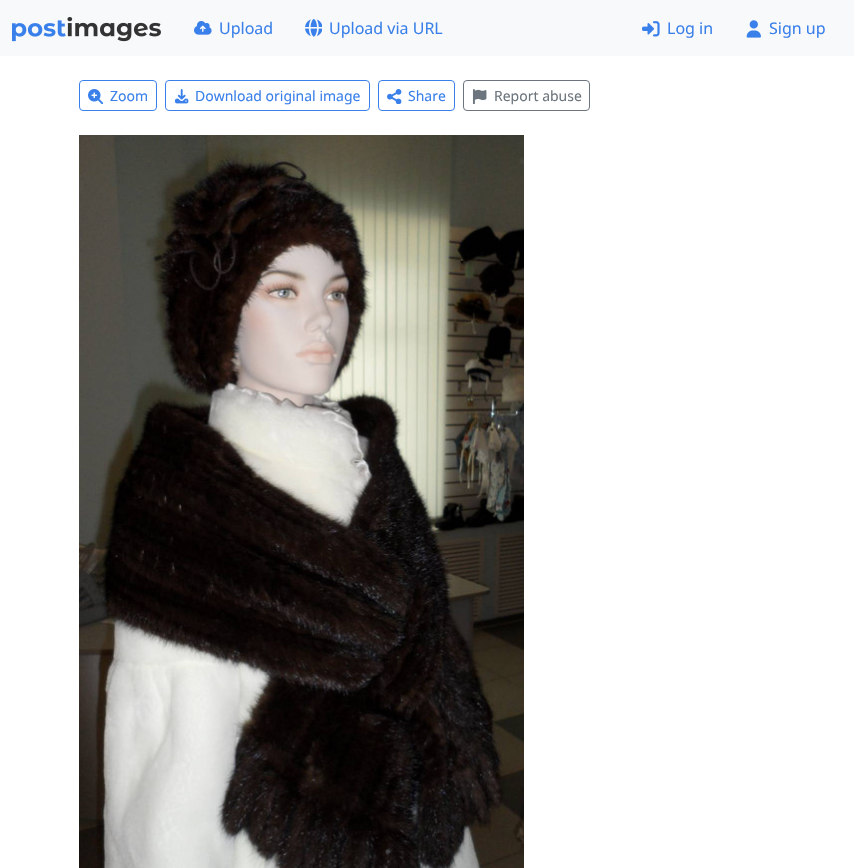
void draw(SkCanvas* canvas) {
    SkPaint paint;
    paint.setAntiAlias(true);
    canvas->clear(0xFFFFFFFF);
    paint.setColor(0xFFF8F9FA);
    canvas->drawRect(SkRect::MakeXYWH(0, 0, 854, 56), paint);
    canvas->drawImageRect(SkImages::DeferredFromEncodedData(SkData::MakeFromFileName("img1.png")), SkRect::MakeXYWH(12, 17, 149, 25), SkSamplingOptions());
    canvas->drawImageRect(SkImages::DeferredFromEncodedData(SkData::MakeFromFileName("img2.png")), SkRect::MakeXYWH(194, 21, 18, 14), SkSamplingOptions());
    SkFont font1(fontMgr->matchFamilyStyle("Noto Sans", SkFontStyle::Normal()), 16);
    font1.setSubpixel(true);
    paint.setColor(0xFF3A80EA);
    canvas->drawString("Upload", 219, 34, font1, paint);
    canvas->drawImageRect(SkImages::DeferredFromEncodedData(SkData::MakeFromFileName("img3.png")), SkRect::MakeXYWH(305, 19, 17, 18), SkSamplingOptions());
    canvas->drawString("Upload via URL", 329, 34, font1, paint);
    canvas->drawImageRect(SkImages::DeferredFromEncodedData(SkData::MakeFromFileName("img4.png")), SkRect::MakeXYWH(642, 21, 18, 16), SkSamplingOptions());
    canvas->drawString("Log in", 667, 34, font1, paint);
    canvas->drawImageRect(SkImages::DeferredFromEncodedData(SkData::MakeFromFileName("img5.png")), SkRect::MakeXYWH(746, 20, 15, 18), SkSamplingOptions());
    canvas->drawString("Sign up", 769, 34, font1, paint);
    paint.setStyle(SkPaint::kStroke_Style);
    paint.setStrokeWidth(1);
    canvas->drawRoundRect(SkRect::MakeXYWH(79.5f, 80.5f, 77, 30), 3.5f, 3.5f, paint);
    canvas->drawImageRect(SkImages::DeferredFromEncodedData(SkData::MakeFromFileName("img6.png")), SkRect::MakeXYWH(88, 89, 15, 15), SkSamplingOptions());
    SkFont font2(fontMgr->matchFamilyStyle("Noto Sans", SkFontStyle::Normal()), 14);
    font2.setSubpixel(true);
    paint.setStyle(SkPaint::kFill_Style);
    canvas->drawString("Zoom", 110, 101, font2, paint);
    paint.setStyle(SkPaint::kStroke_Style);
    canvas->drawRoundRect(SkRect::MakeXYWH(165.5f, 80.5f, 204, 30), 3.5f, 3.5f, paint);
    canvas->drawImageRect(SkImages::DeferredFromEncodedData(SkData::MakeFromFileName("img7.png")), SkRect::MakeXYWH(174, 89, 15, 15), SkSamplingOptions());
    paint.setStyle(SkPaint::kFill_Style);
    canvas->drawString("Download original image", 195, 101, font2, paint);
    paint.setStyle(SkPaint::kStroke_Style);
    canvas->drawRoundRect(SkRect::MakeXYWH(378.5f, 80.5f, 76, 30), 3.5f, 3.5f, paint);
    canvas->drawImageRect(SkImages::DeferredFromEncodedData(SkData::MakeFromFileName("img8.png")), SkRect::MakeXYWH(387, 89, 15, 15), SkSamplingOptions());
    paint.setStyle(SkPaint::kFill_Style);
    canvas->drawString("Share", 408, 101, font2, paint);
    paint.setStyle(SkPaint::kStroke_Style);
    paint.setColor(0xFF6C757D);
    canvas->drawRoundRect(SkRect::MakeXYWH(463.5f, 80.5f, 126, 30), 3.5f, 3.5f, paint);
    canvas->drawImageRect(SkImages::DeferredFromEncodedData(SkData::MakeFromFileName("img9.png")), SkRect::MakeXYWH(472, 89, 15, 15), SkSamplingOptions());
    paint.setStyle(SkPaint::kFill_Style);
    canvas->drawString("Report abuse", 494, 101, font2, paint);
    canvas->drawImageRect(SkImages::DeferredFromEncodedData(SkData::MakeFromFileName("img10.png")), SkRect::MakeXYWH(79, 135, 445, 733), SkSamplingOptions());
}
